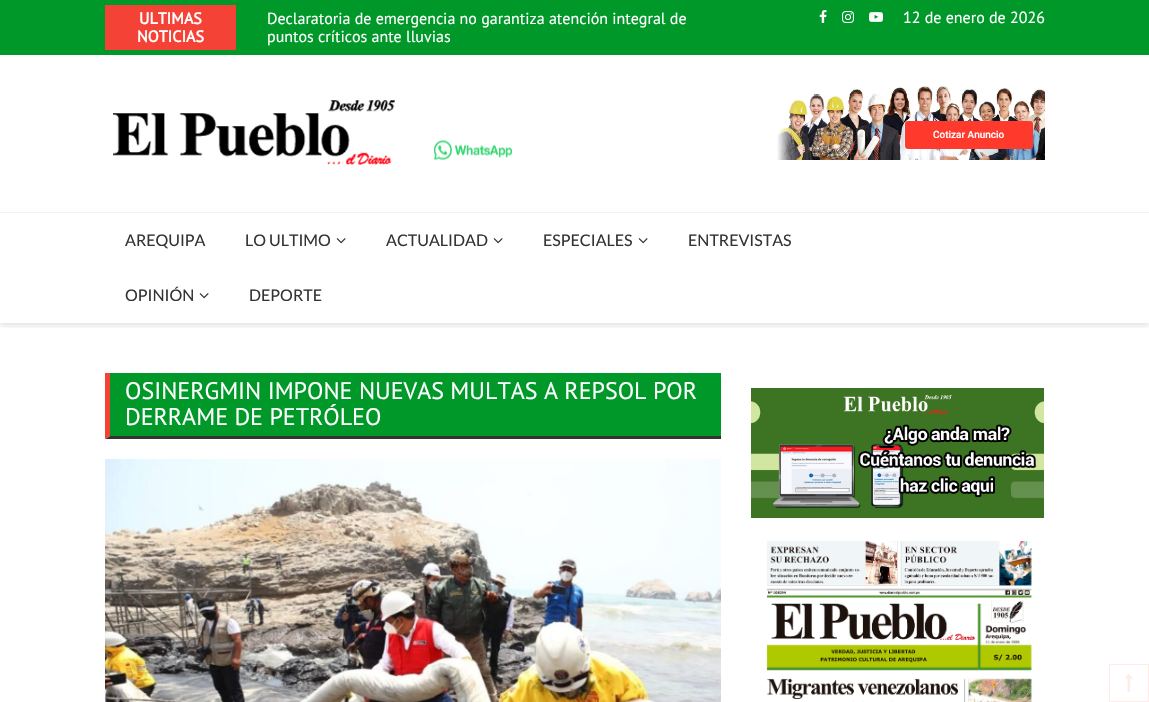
void draw(SkCanvas* canvas) {
    SkPaint paint;
    paint.setAntiAlias(true);
    canvas->clear(0xFFFFFFFF);
    paint.setColor(0xFF009929);
    canvas->drawRect(SkRect::MakeXYWH(0, 0, 1149, 55), paint);
    paint.setColor(0xFFF44336);
    canvas->drawRect(SkRect::MakeXYWH(105, 5, 131, 45), paint);
    SkFont font1(fontMgr->matchFamilyStyle("PT Sans", SkFontStyle::Bold()), 16);
    font1.setSubpixel(true);
    paint.setColor(0xFFFFFFFF);
    canvas->drawString("ULTIMAS", 139, 24, font1, paint);
    canvas->drawString("NOTICIAS", 137, 42, font1, paint);
    SkFont font2(fontMgr->matchFamilyStyle("PT Sans", SkFontStyle::Normal()), 16);
    font2.setSubpixel(true);
    canvas->drawString("Declaratoria de emergencia no garantiza atención integral de", 267, 24, font2, paint);
    canvas->drawString("puntos críticos ante lluvias", 267, 42, font2, paint);
    canvas->drawImageRect(SkImages::DeferredFromEncodedData(SkData::MakeFromFileName("img1.png")), SkRect::MakeXYWH(819, 10, 8, 13), SkSamplingOptions());
    canvas->drawImageRect(SkImages::DeferredFromEncodedData(SkData::MakeFromFileName("img2.png")), SkRect::MakeXYWH(842, 11, 12, 12), SkSamplingOptions());
    canvas->drawImageRect(SkImages::DeferredFromEncodedData(SkData::MakeFromFileName("img3.png")), SkRect::MakeXYWH(869, 12, 14, 10), SkSamplingOptions());
    canvas->drawString("12 de enero de 2026", 903, 23, font2, paint);
    canvas->drawImageRect(SkImages::DeferredFromEncodedData(SkData::MakeFromFileName("img4.png")), SkRect::MakeXYWH(113, 99, 282, 66), SkSamplingOptions());
    canvas->drawImageRect(SkImages::DeferredFromEncodedData(SkData::MakeFromFileName("img5.png")), SkRect::MakeXYWH(777, 86, 268, 74), SkSamplingOptions());
    paint.setColor(0xFFFF3A2D);
    canvas->drawRoundRect(SkRect::MakeXYWH(905, 121, 128, 28), 3, 3, paint);
    SkFont font3(fontMgr->matchFamilyStyle("Roboto", SkFontStyle(500, SkFontStyle::kNormal_Width, SkFontStyle::kUpright_Slant)), 10);
    font3.setSubpixel(true);
    paint.setColor(0xFFFFFFFF);
    canvas->drawString("Cotizar Anuncio", 933, 138, font3, paint);
    canvas->drawImageRect(SkImages::DeferredFromEncodedData(SkData::MakeFromFileName("img6.png")), SkRect::MakeXYWH(434, 140, 78, 20), SkSamplingOptions());
    canvas->save();
    canvas->clipRect(SkRect::MakeXYWH(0, 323, 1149, 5));
    paint.setColor(0x1A000000);
    paint.setMaskFilter(SkMaskFilter::MakeBlur(kNormal_SkBlurStyle, 2.5f));
    canvas->drawRect(SkRect::MakeXYWH(0, 215, 1149, 111), paint);
    paint.setMaskFilter(nullptr);
    canvas->restore();
    paint.setColor(0xFFF2F2F2);
    canvas->drawRect(SkRect::MakeXYWH(0, 212, 1149, 1), paint);
    SkFont font4(fontMgr->matchFamilyStyle("Lato", SkFontStyle::Normal()), 16);
    font4.setSubpixel(true);
    paint.setColor(0xFF333333);
    canvas->drawString("AREQUIPA", 125, 246, font4, paint);
    canvas->drawString("LO ULTIMO", 245, 246, font4, paint);
    canvas->drawImageRect(SkImages::DeferredFromEncodedData(SkData::MakeFromFileName("img7.png")), SkRect::MakeXYWH(336, 238, 10, 6), SkSamplingOptions());
    canvas->drawString("ACTUALIDAD", 386, 246, font4, paint);
    canvas->drawImageRect(SkImages::DeferredFromEncodedData(SkData::MakeFromFileName("img7.png")), SkRect::MakeXYWH(493, 238, 10, 6), SkSamplingOptions());
    canvas->drawString("ESPECIALES", 543, 246, font4, paint);
    canvas->drawImageRect(SkImages::DeferredFromEncodedData(SkData::MakeFromFileName("img7.png")), SkRect::MakeXYWH(638, 238, 10, 6), SkSamplingOptions());
    canvas->drawString("ENTREVISTAS", 688, 246, font4, paint);
    canvas->drawString("OPINIÓN", 125, 301, font4, paint);
    canvas->drawImageRect(SkImages::DeferredFromEncodedData(SkData::MakeFromFileName("img7.png")), SkRect::MakeXYWH(199, 293, 10, 6), SkSamplingOptions());
    canvas->drawString("DEPORTE", 249, 301, font4, paint);
    canvas->drawPath(SkPathBuilder().moveTo(721, 439).lineTo(105, 439).lineTo(110, 436).lineTo(721, 436).close().detach(), paint);
    paint.setColor(0xFFF44336);
    canvas->drawPath(SkPathBuilder().moveTo(105, 439).lineTo(105, 373).lineTo(110, 373).lineTo(110, 436).close().detach(), paint);
    paint.setColor(0xFF009929);
    canvas->drawRect(SkRect::MakeXYWH(110, 373, 611, 63), paint);
    SkFont font5(fontMgr->matchFamilyStyle("PT Sans", SkFontStyle::Normal()), 24);
    font5.setSubpixel(true);
    paint.setColor(0xFFFFFFFF);
    canvas->drawString("OSINERGMIN IMPONE NUEVAS MULTAS A REPSOL POR", 125, 399, font5, paint);
    canvas->drawString("DERRAME DE PETRÓLEO", 125, 425, font5, paint);
    canvas->drawImageRect(SkImages::DeferredFromEncodedData(SkData::MakeFromFileName("img8.png")), SkRect::MakeXYWH(105, 459, 616, 243), SkSamplingOptions());
    canvas->drawImageRect(SkImages::DeferredFromEncodedData(SkData::MakeFromFileName("img9.png")), SkRect::MakeXYWH(751, 388, 293, 130), SkSamplingOptions());
    canvas->drawImageRect(SkImages::DeferredFromEncodedData(SkData::MakeFromFileName("img10.png")), SkRect::MakeXYWH(766, 541, 266, 161), SkSamplingOptions());
    paint.setStyle(SkPaint::kStroke_Style);
    paint.setStrokeWidth(1);
    paint.setColor(0xFFFEEBEA);
    canvas->drawRect(SkRect::MakeXYWH(1109.5f, 664.5f, 39, 37), paint);
    canvas->drawImageRect(SkImages::DeferredFromEncodedData(SkData::MakeFromFileName("img11.png")), SkRect::MakeXYWH(1125, 674, 8, 18), SkSamplingOptions());
}
